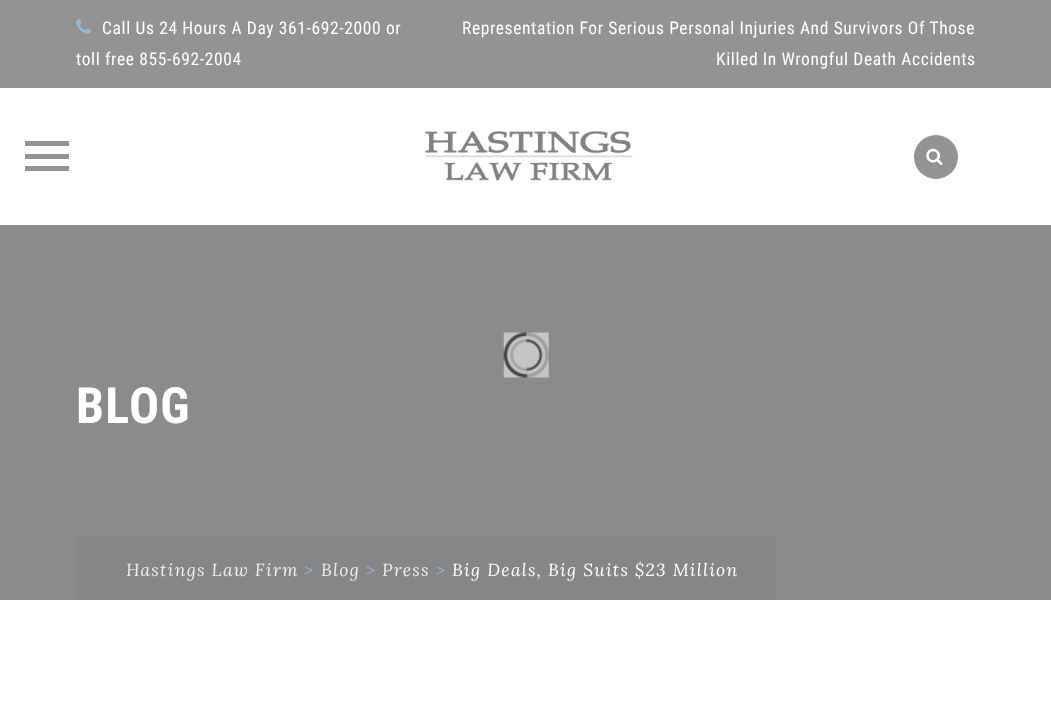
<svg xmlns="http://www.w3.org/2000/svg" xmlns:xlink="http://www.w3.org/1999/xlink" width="1051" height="710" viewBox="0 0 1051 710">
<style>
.cls-1{font:17.5px Roboto Condensed;letter-spacing:0.62px;fill:#ffffff}
.cls-2{font:bold 50px Roboto Condensed;letter-spacing:1.25px;fill:#ffffff}
.cls-3{font:italic 17.5px Lora;letter-spacing:1.25px;fill:#eeeeee}
.cls-4{font:italic 17.5px Lora;letter-spacing:1.25px;fill:#91badf}
.cls-5{font:italic 17.5px Lora;letter-spacing:1.25px;fill:#ffffff}
</style>
<rect width="100%" height="100%" fill="#ffffff"/>
<rect fill="#939393" x="0" y="0" width="1051" height="88"/>
<image xlink:href="image0.png" x="76" y="19" width="15" height="15"/>
<rect fill="#939393" x="25" y="154" width="44" height="5"/>
<rect fill="#939393" x="25" y="141" width="44" height="5"/>
<rect fill="#939393" x="25" y="166" width="44" height="5"/>
<image xlink:href="image1.png" x="424" y="130" width="209" height="51"/>
<circle fill="#939393" cx="936" cy="157" r="22"/>
<image xlink:href="image2.png" x="926" y="148" width="17" height="17"/>
<rect fill="#8b8b8b" x="0" y="225" width="1051" height="375"/>
<rect fill="#868686" x="76" y="536" width="700" height="64"/>
<image xlink:href="image3.png" x="503" y="332" width="46" height="46"/>
<text class="cls-1" x="102" y="34">Call Us 24 Hours A Day 361-692-2000 or</text>
<text class="cls-1" x="76" y="65">toll free 855-692-2004</text>
<text class="cls-1" x="462" y="34">Representation For Serious Personal Injuries And Survivors Of Those</text>
<text class="cls-1" x="716" y="65">Killed In Wrongful Death Accidents</text>
<text class="cls-2" x="76" y="423">BLOG</text>
<text class="cls-3" x="126" y="576">Hastings Law Firm</text>
<text class="cls-4" x="304" y="576">&gt;</text>
<text class="cls-3" x="321" y="576">Blog</text>
<text class="cls-4" x="366" y="576">&gt;</text>
<text class="cls-3" x="382" y="576">Press</text>
<text class="cls-4" x="436" y="576">&gt;</text>
<text class="cls-5" x="452" y="576">Big Deals, Big Suits $23 Million</text>
</svg>
